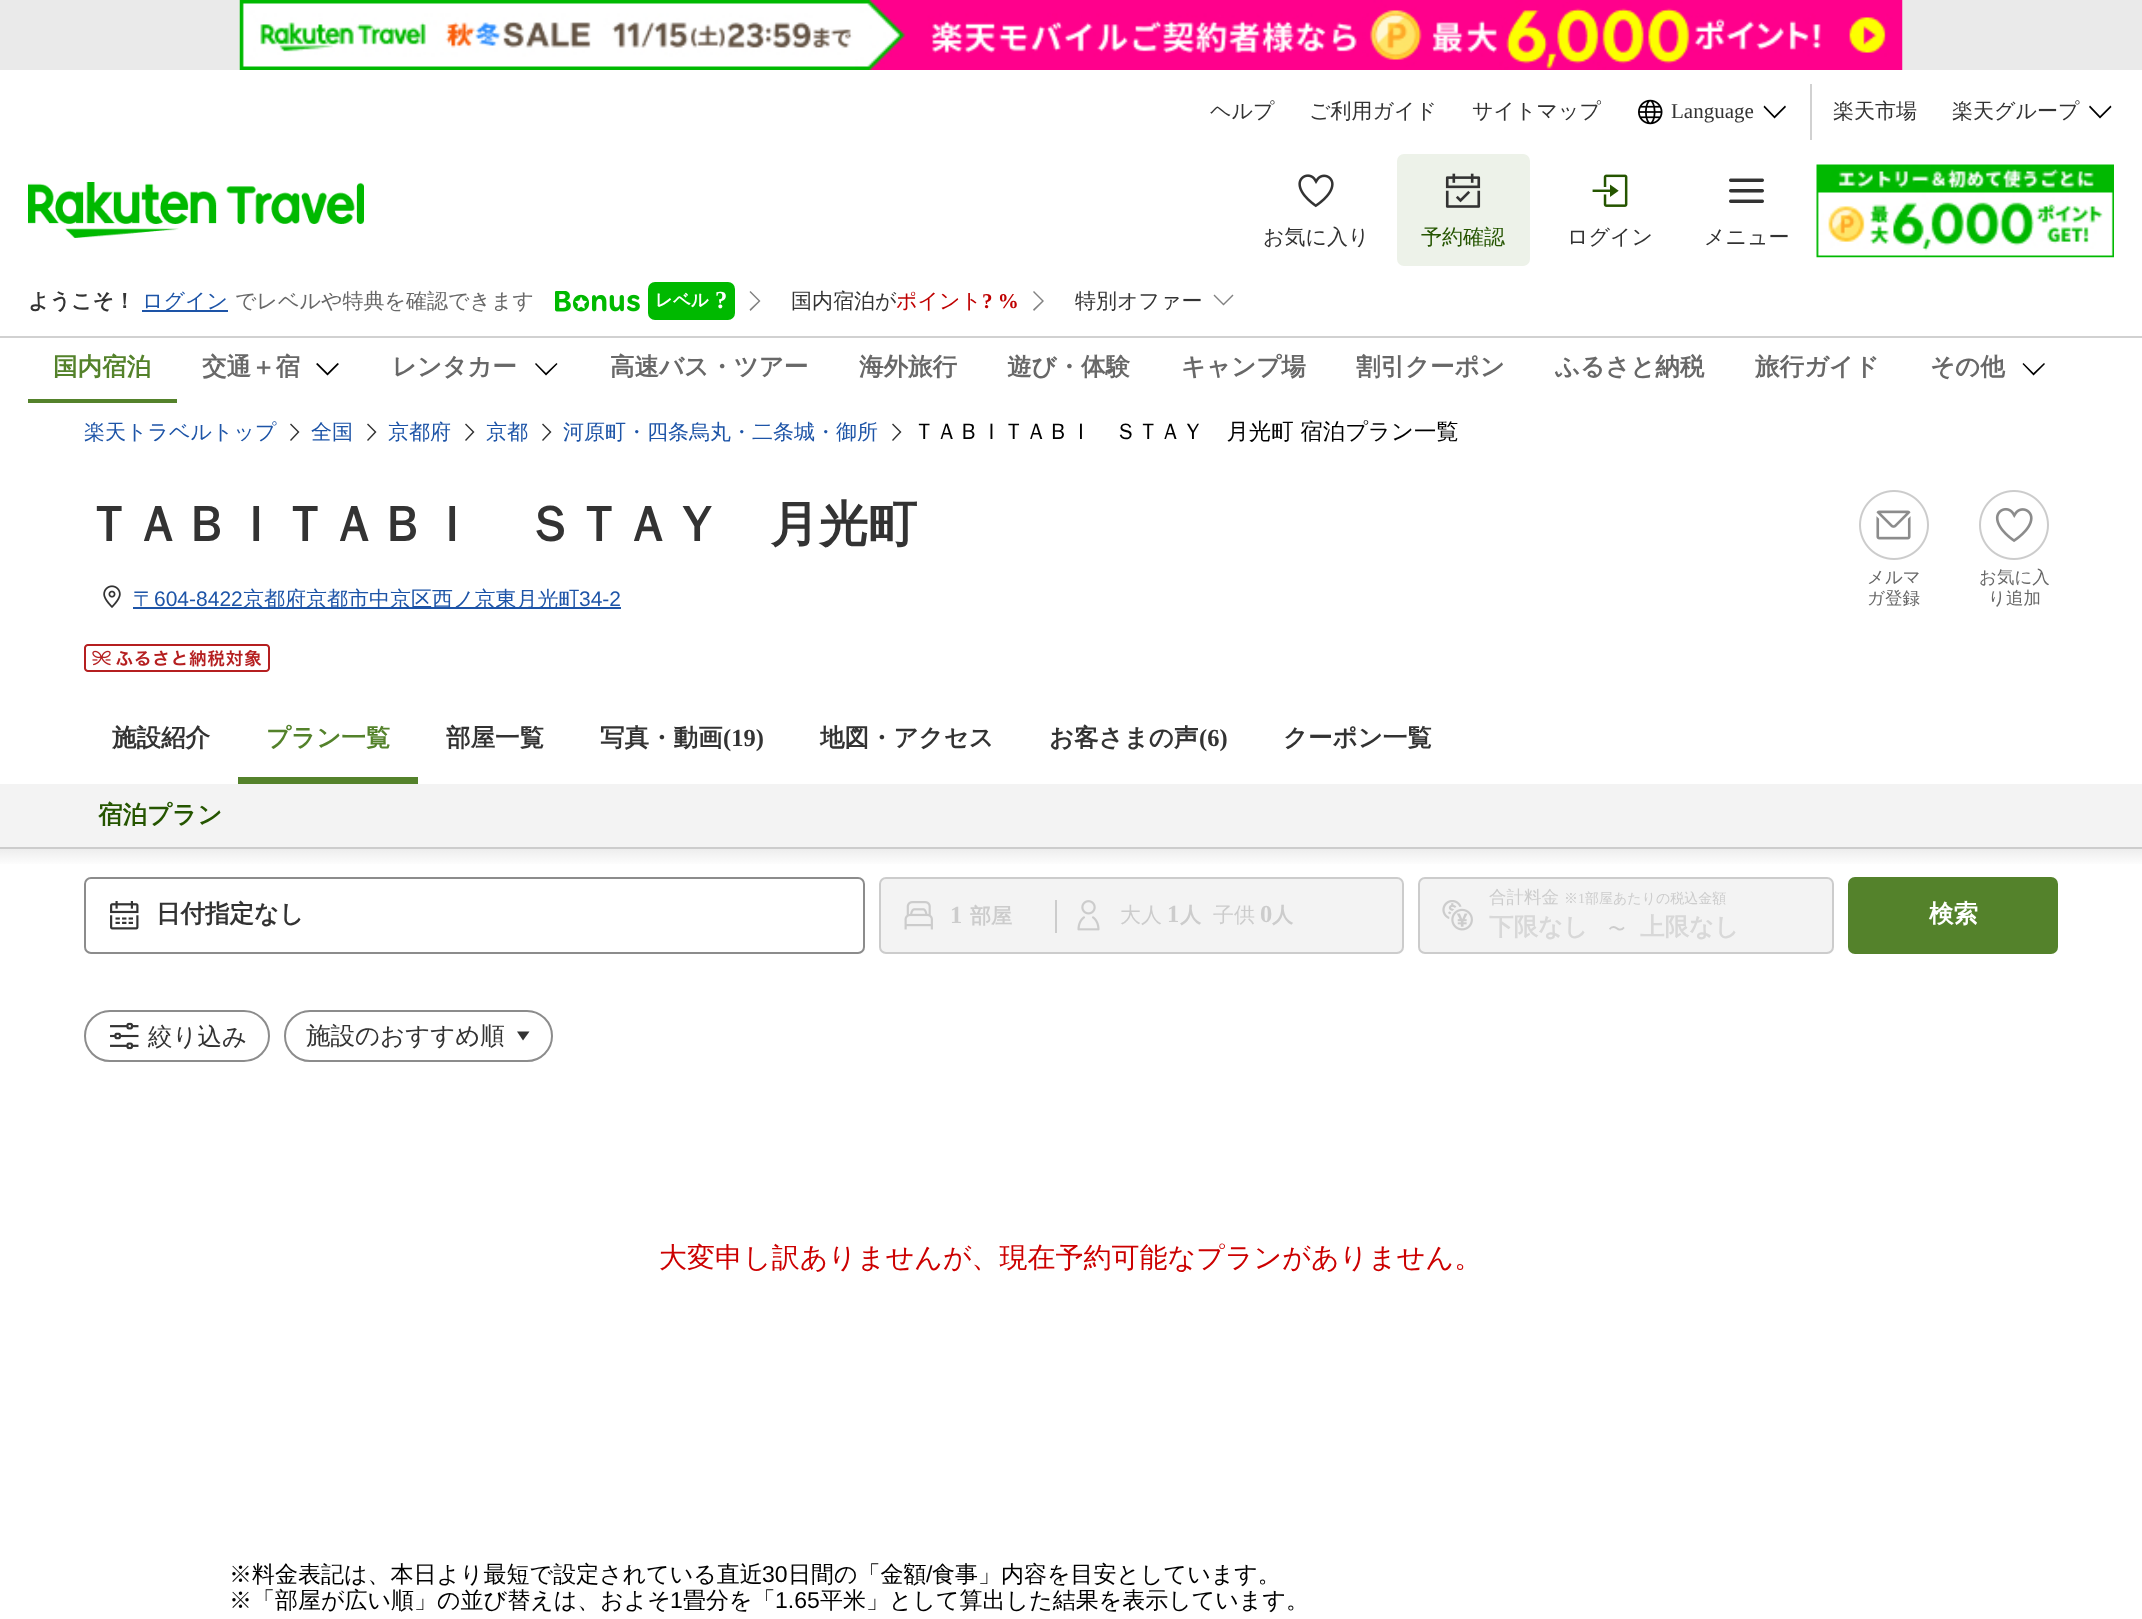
<svg xmlns="http://www.w3.org/2000/svg" xmlns:xlink="http://www.w3.org/1999/xlink" width="2142" height="1619" viewBox="0 0 2142 1619">
<style>
.cls-1{font:500 21px WenQuanYi Zen Hei;fill:#333333}
.cls-2{font:21px Liberation Serif;fill:#333333}
.cls-3{font:500 21px WenQuanYi Zen Hei;fill:#255500}
.cls-4{font:bold 21px WenQuanYi Zen Hei;fill:#333333}
.cls-5{font:500 21px WenQuanYi Zen Hei;fill:#1d54a7}
.cls-6{font:500 21px WenQuanYi Zen Hei;fill:#686868}
.cls-7{font:bold 17.5px WenQuanYi Zen Hei;fill:#ffffff}
.cls-8{font:bold 24.5px Liberation Serif;fill:#ffffff}
.cls-9{font:500 21px WenQuanYi Zen Hei;fill:#bf0000}
.cls-10{font:bold 21px Liberation Serif;fill:#bf0000}
.cls-11{font:bold 24.5px WenQuanYi Zen Hei;fill:#54822b}
.cls-12{font:bold 24.5px WenQuanYi Zen Hei;fill:#686868}
.cls-13{font:500 22.4px WenQuanYi Zen Hei;fill:#000000}
.cls-14{font:bold 49px WenQuanYi Zen Hei;fill:#333333}
.cls-15{font:21px Liberation Sans;fill:#1d54a7}
.cls-16{font:500 17.5px WenQuanYi Zen Hei;fill:#686868}
.cls-17{font:bold 24.5px WenQuanYi Zen Hei;fill:#333333}
.cls-18{font:bold 24.5px Liberation Serif;fill:#333333}
.cls-19{font:bold 24.5px WenQuanYi Zen Hei;fill:#255500}
.cls-20{font:bold 24.5px Liberation Serif;fill:#cccccc}
.cls-21{font:bold 21px WenQuanYi Zen Hei;fill:#cccccc}
.cls-22{font:500 21px WenQuanYi Zen Hei;fill:#cccccc}
.cls-23{font:500 17.5px WenQuanYi Zen Hei;fill:#cccccc}
.cls-24{font:500 14px WenQuanYi Zen Hei;fill:#cccccc}
.cls-25{font:14px Liberation Serif;fill:#cccccc}
.cls-26{font:bold 24.5px WenQuanYi Zen Hei;fill:#d8d8d8}
.cls-27{font:bold 24.5px WenQuanYi Zen Hei;fill:#ffffff}
.cls-28{font:500 24.5px WenQuanYi Zen Hei;fill:#333333}
.cls-29{font:500 28px WenQuanYi Zen Hei;fill:#cc0000}
.cls-30{font:500 23px WenQuanYi Zen Hei;fill:#000000}
.cls-31{font:23px Liberation Sans;fill:#000000}
</style>
<defs>
<linearGradient id="g1" gradientUnits="userSpaceOnUse" x1="1071" y1="866" x2="1071" y2="849"><stop offset="0" stop-color="#ffffff"/><stop offset="1" stop-color="#ededed"/></linearGradient>
</defs>
<rect width="100%" height="100%" fill="#ffffff"/>
<rect fill="#eaeaea" x="0" y="0" width="2142" height="70"/>
<image xlink:href="image0.png" x="239" y="0" width="1664" height="70"/>
<image xlink:href="image1.png" x="1638" y="99" width="25" height="26"/>
<path fill="#000000" fill-rule="evenodd" d="M1786 107L1785 105.5L1774.5 116L1764.5 105.5L1763.5 107L1774.5 118.5Z"/>
<rect fill="#d1d1d1" x="1810" y="84" width="2" height="56"/>
<path fill="#000000" fill-rule="evenodd" d="M2111.5 107L2110.5 105.5L2100 116L2090 105.5L2089 107L2100 118.5Z"/>
<image xlink:href="image2.png" x="28" y="182" width="336" height="56"/>
<image xlink:href="image3.png" x="1298" y="174" width="36" height="34"/>
<rect fill="#edf2e9" x="1397" y="154" width="133" height="112" rx="7"/>
<image xlink:href="image4.png" x="1445" y="173" width="36" height="35"/>
<image xlink:href="image5.png" x="1592" y="174" width="36" height="33"/>
<image xlink:href="image6.png" x="1729" y="178" width="35" height="25"/>
<image xlink:href="image7.png" x="1816" y="164" width="298" height="94"/>
<rect fill="#1d54a7" x="142" y="310" width="86" height="2"/>
<image xlink:href="image8.png" x="555" y="291" width="85" height="21"/>
<rect fill="#00b900" x="648" y="282" width="87" height="38" rx="7"/>
<path fill="#828282" fill-rule="evenodd" d="M750.5 291L749.5 292L758.5 301L749.5 309.5L750.5 311L760.5 301Z"/>
<path fill="#828282" fill-rule="evenodd" d="M1034 291L1033 292L1042 301L1033 309.5L1034 311L1044 301Z"/>
<path fill="#828282" fill-rule="evenodd" d="M1233.5 295.5L1232.5 294.5L1223.5 303.5L1214.5 294.5L1213.5 295.5L1223.5 305.5Z"/>
<rect fill="#d1d1d1" x="0" y="336" width="2142" height="2"/>
<rect fill="#54822b" x="28" y="399" width="149" height="4"/>
<path fill="#000000" fill-rule="evenodd" d="M339 364L337.5 363L327.5 373L317.5 363L316 364L327.5 375.5Z"/>
<path fill="#000000" fill-rule="evenodd" d="M557.5 364L556.5 363L546 373L536 363L535 364L546 375.5Z"/>
<path fill="#000000" fill-rule="evenodd" d="M2045 364L2044 363L2033.5 373L2023.5 363L2022.5 364L2033.5 375.5Z"/>
<path fill="#333333" fill-rule="evenodd" d="M291 423.5L290 424.5L297.5 432L290 440L291 441L299.5 432Z"/>
<path fill="#333333" fill-rule="evenodd" d="M368 423.5L367 424.5L374.5 432L367 440L368 441L376.5 432Z"/>
<path fill="#333333" fill-rule="evenodd" d="M466 423.5L465 424.5L472.5 432L465 440L466 441L474.5 432Z"/>
<path fill="#333333" fill-rule="evenodd" d="M543 423.5L542 424.5L549.5 432L542 440L543 441L551.5 432Z"/>
<path fill="#333333" fill-rule="evenodd" d="M893 423.5L892 424.5L899.5 432L892 440L893 441L901.5 432Z"/>
<image xlink:href="image9.png" x="103" y="585" width="18" height="23"/>
<rect fill="#1d54a7" x="133" y="607" width="488" height="2"/>
<image xlink:href="image10.png" x="84" y="644" width="186" height="28"/>
<image xlink:href="image11.png" x="1859" y="490" width="70" height="70"/>
<image xlink:href="image12.png" x="1979" y="490" width="70" height="70"/>
<rect fill="#54822b" x="238" y="777" width="180" height="7"/>
<rect fill="url(#g1)" x="0" y="849" width="2142" height="15"/>
<rect fill="#f3f3f3" x="0" y="784" width="2142" height="63"/>
<rect fill="#cccccc" x="0" y="847" width="2142" height="2"/>
<rect fill="none" stroke="#8c8c8c" stroke-width="2" x="85" y="878" width="779" height="75" rx="6"/>
<image xlink:href="image13.png" x="110" y="901" width="29" height="29"/>
<rect fill="#f3f3f3" stroke="#cccccc" stroke-width="2" x="880" y="878" width="523" height="75" rx="6"/>
<rect fill="#cccccc" x="1055" y="900" width="2" height="33"/>
<image xlink:href="image14.png" x="904" y="901" width="29" height="29"/>
<image xlink:href="image15.png" x="1077" y="900" width="23" height="31"/>
<rect fill="#f3f3f3" stroke="#cccccc" stroke-width="2" x="1419" y="878" width="414" height="75" rx="6"/>
<image xlink:href="image16.png" x="1442" y="900" width="31" height="31"/>
<rect fill="#54822b" x="1848" y="877" width="210" height="77" rx="7"/>
<rect fill="none" stroke="#8c8c8c" stroke-width="2" x="85" y="1011" width="184" height="50" rx="25"/>
<image xlink:href="image17.png" x="110" y="1022" width="29" height="28"/>
<rect fill="none" stroke="#8c8c8c" stroke-width="2" x="285" y="1011" width="267" height="50" rx="25"/>
<path fill="#333333" fill-rule="evenodd" d="M523 1040.5L517 1031.5H529.5Z"/>
<text class="cls-1" x="1210" y="118">ヘルプ</text>
<text class="cls-1" x="1309" y="118">ご利用ガイド</text>
<text class="cls-1" x="1472" y="118">サイトマップ</text>
<text class="cls-2" x="1671" y="118">Language</text>
<text class="cls-1" x="1833" y="118">楽天市場</text>
<text class="cls-1" x="1952" y="118">楽天グループ</text>
<text class="cls-1" x="1263" y="244">お気に入り</text>
<text class="cls-3" x="1421" y="244">予約確認</text>
<text class="cls-1" x="1567" y="244">ログイン</text>
<text class="cls-1" x="1704" y="244">メニュー</text>
<text class="cls-4" x="28" y="308">ようこそ！</text>
<text class="cls-5" x="142" y="308">ログイン</text>
<text class="cls-6" x="235" y="308">でレベルや特典を確認できます</text>
<text class="cls-7" x="655" y="306">レベル</text>
<text class="cls-8" x="715" y="308">?</text>
<text class="cls-1" x="791" y="308">国内宿泊が</text>
<text class="cls-9" x="896" y="308">ポイント</text>
<text class="cls-10" x="982" y="308">? %</text>
<text class="cls-1" x="1075" y="308">特別オファー</text>
<text class="cls-11" x="53" y="375">国内宿泊</text>
<text class="cls-12" x="202" y="375">交通＋宿</text>
<text class="cls-12" x="392" y="375">レンタカー</text>
<text class="cls-12" x="610" y="375">高速バス・ツアー</text>
<text class="cls-12" x="859" y="375">海外旅行</text>
<text class="cls-12" x="1007" y="375">遊び・体験</text>
<text class="cls-12" x="1181" y="375">キャンプ場</text>
<text class="cls-12" x="1356" y="375">割引クーポン</text>
<text class="cls-12" x="1555" y="375">ふるさと納税</text>
<text class="cls-12" x="1755" y="375">旅行ガイド</text>
<text class="cls-12" x="1930" y="375">その他</text>
<text class="cls-5" x="84" y="439">楽天トラベルトップ</text>
<text class="cls-5" x="311" y="439">全国</text>
<text class="cls-5" x="388" y="439">京都府</text>
<text class="cls-5" x="486" y="439">京都</text>
<text class="cls-5" x="563" y="439">河原町・四条烏丸・二条城・御所</text>
<text class="cls-13" x="913" y="439">ＴＡＢＩＴＡＢＩ　ＳＴＡＹ　月光町 宿泊プラン一覧</text>
<text class="cls-14" x="84" y="541">ＴＡＢＩＴＡＢＩ　ＳＴＡＹ　月光町</text>
<text class="cls-5" x="133" y="606">〒</text>
<text class="cls-15" x="154" y="606">604-8422</text>
<text class="cls-5" x="243" y="606">京都府京都市中京区西ノ京東月光町</text>
<text class="cls-15" x="579" y="606">34-2</text>
<text class="cls-16"><tspan x="1867" y="583">メルマ</tspan><tspan x="1867" y="604">ガ登録</tspan></text>
<text class="cls-16" x="1979" y="583">お気に入</text>
<text class="cls-16" x="1988" y="604">り追加</text>
<text class="cls-17" x="112" y="746">施設紹介</text>
<text class="cls-11" x="266" y="746">プラン一覧</text>
<text class="cls-17" x="446" y="746">部屋一覧</text>
<text class="cls-17" x="600" y="746">写真・動画</text>
<text class="cls-18" x="723" y="746">(19)</text>
<text class="cls-17" x="820" y="746">地図・アクセス</text>
<text class="cls-17" x="1049" y="746">お客さまの声</text>
<text class="cls-18" x="1199" y="746">(6)</text>
<text class="cls-17" x="1283" y="746">クーポン一覧</text>
<text class="cls-19" x="98" y="823">宿泊プラン</text>
<text class="cls-17" x="156" y="922">日付指定なし</text>
<text class="cls-20" x="950" y="923">1</text>
<text class="cls-21" x="970" y="923">部屋</text>
<text class="cls-22" x="1120" y="922">大人</text>
<text class="cls-20" x="1167" y="922">1</text>
<text class="cls-21" x="1180" y="922">人</text>
<text class="cls-22" x="1213" y="922">子供</text>
<text class="cls-20" x="1260" y="922">0</text>
<text class="cls-21" x="1272" y="922">人</text>
<text class="cls-23" x="1489" y="903">合計料金</text>
<text class="cls-24" x="1564" y="903">※</text>
<text class="cls-25" x="1578" y="903">1</text>
<text class="cls-24" x="1585" y="903">部屋あたりの税込金額</text>
<text class="cls-26" x="1489" y="935">下限なし</text>
<text class="cls-23" x="1608" y="935">〜</text>
<text class="cls-26" x="1640" y="935">上限なし</text>
<text class="cls-27" x="1929" y="922">検索</text>
<text class="cls-28" x="148" y="1045">絞り込み</text>
<text class="cls-28" x="306" y="1044">施設のおすすめ順</text>
<text class="cls-29" x="659" y="1267">大変申し訳ありませんが、現在予約可能なプランがありません。</text>
<text class="cls-30" x="229" y="1582">※料金表記は、本日より最短で設定されている直近</text>
<text class="cls-31" x="762" y="1582">30</text>
<text class="cls-30" x="788" y="1582">日間の「金額</text>
<text class="cls-31" x="926" y="1582">/</text>
<text class="cls-30" x="932" y="1582">食事」内容を目安としています。</text>
<text class="cls-30" x="229" y="1608">※「部屋が広い順」の並び替えは、およそ</text>
<text class="cls-31" x="670" y="1608">1</text>
<text class="cls-30" x="683" y="1608">畳分を「</text>
<text class="cls-31" x="775" y="1608">1.65</text>
<text class="cls-30" x="820" y="1608">平米」として算出した結果を表示しています。</text>
</svg>
